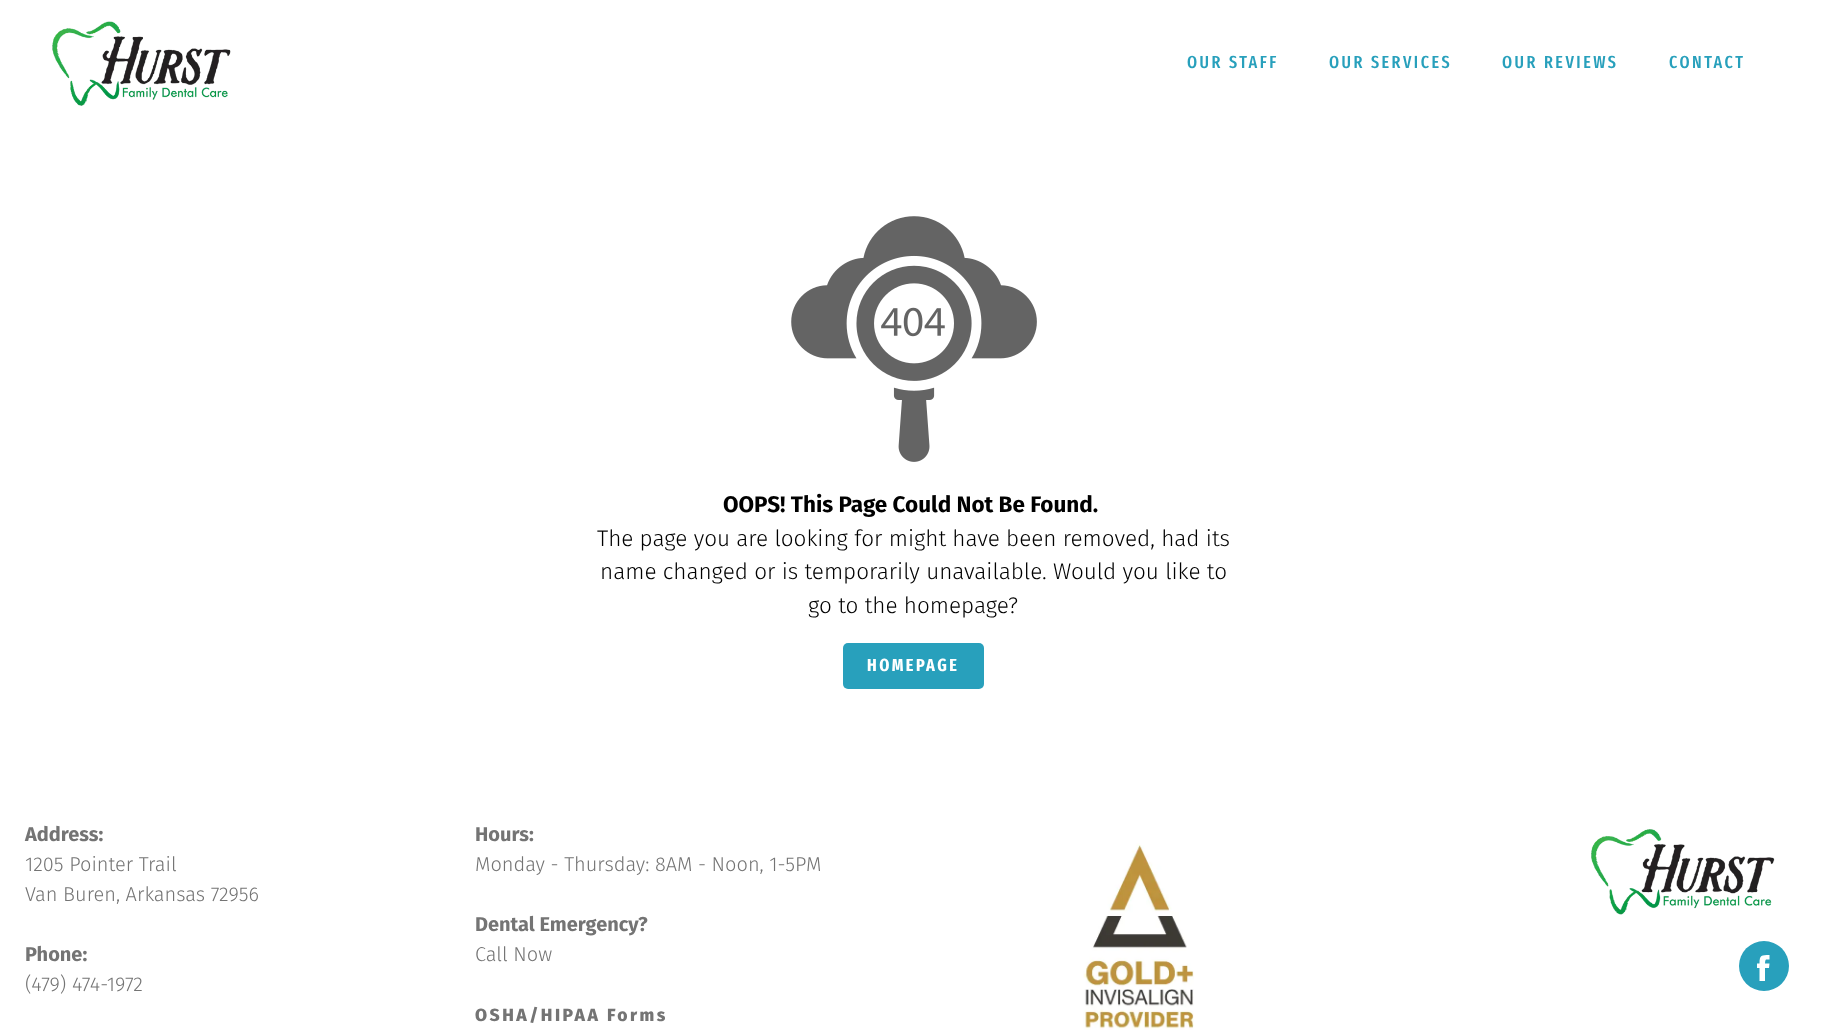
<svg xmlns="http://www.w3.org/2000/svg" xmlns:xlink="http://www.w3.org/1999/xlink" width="1826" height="1031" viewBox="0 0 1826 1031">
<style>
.cls-1{font:500 17.5px Fira Sans Extra Condensed;letter-spacing:2.5px;fill:#28a0bc}
.cls-2{font:bold 22.5px Fira Sans;fill:#000000}
.cls-3{font:300 22.5px Fira Sans;fill:#000000}
.cls-4{font:bold 17.5px Fira Sans Extra Condensed;letter-spacing:2.5px;fill:#ffffff}
.cls-5{font:bold 20px Fira Sans;fill:#747474}
.cls-6{font:300 20px Fira Sans;fill:#747474}
.cls-7{font:800 17.5px Fira Sans;letter-spacing:2.5px;fill:#747474}
</style>
<rect width="100%" height="100%" fill="#ffffff"/>
<image xlink:href="image0.png" x="52" y="21" width="179" height="85"/>
<image xlink:href="image1.png" x="791" y="216" width="246" height="246"/>
<rect fill="#28a0bc" x="843" y="643" width="141" height="46" rx="5"/>
<image xlink:href="image2.png" x="1083" y="843" width="111" height="187"/>
<image xlink:href="image3.png" x="1591" y="829" width="184" height="86"/>
<circle fill="#28a0bc" cx="1764" cy="966" r="25"/>
<path fill="#ffffff" fill-rule="evenodd" d="M1765 981H1759.5V968H1757V963.5H1759.5C1759.5 955 1761.5 955 1769.5 955V959.5C1765 959.5 1765.5 959 1765 963.5H1769.5L1769 968H1765Z"/>
<text class="cls-1" x="1187" y="68">OUR STAFF</text>
<text class="cls-1" x="1329" y="68">OUR SERVICES</text>
<text class="cls-1" x="1502" y="68">OUR REVIEWS</text>
<text class="cls-1" x="1669" y="68">CONTACT</text>
<text class="cls-2" x="723" y="512">OOPS! This Page Could Not Be Found.</text>
<text class="cls-3" x="597" y="546">The page you are looking for might have been removed, had its</text>
<text class="cls-3" x="600" y="579">name changed or is temporarily unavailable. Would you like to</text>
<text class="cls-3" x="808" y="613">go to the homepage?</text>
<text class="cls-4" x="867" y="671">HOMEPAGE</text>
<text class="cls-5" x="25" y="841">Address:</text>
<text class="cls-6"><tspan x="25" y="871">1205 Pointer Trail</tspan><tspan x="25" y="901">Van Buren, Arkansas 72956</tspan></text>
<text class="cls-5" x="25" y="961">Phone:</text>
<text class="cls-6" x="25" y="991">(479) 474-1972</text>
<text class="cls-5" x="475" y="841">Hours:</text>
<text class="cls-6" x="475" y="871">Monday - Thursday: 8AM - Noon, 1-5PM</text>
<text class="cls-5" x="475" y="931">Dental Emergency?</text>
<text class="cls-6" x="475" y="961">Call Now</text>
<text class="cls-7" x="475" y="1021">OSHA/HIPAA Forms</text>
</svg>
